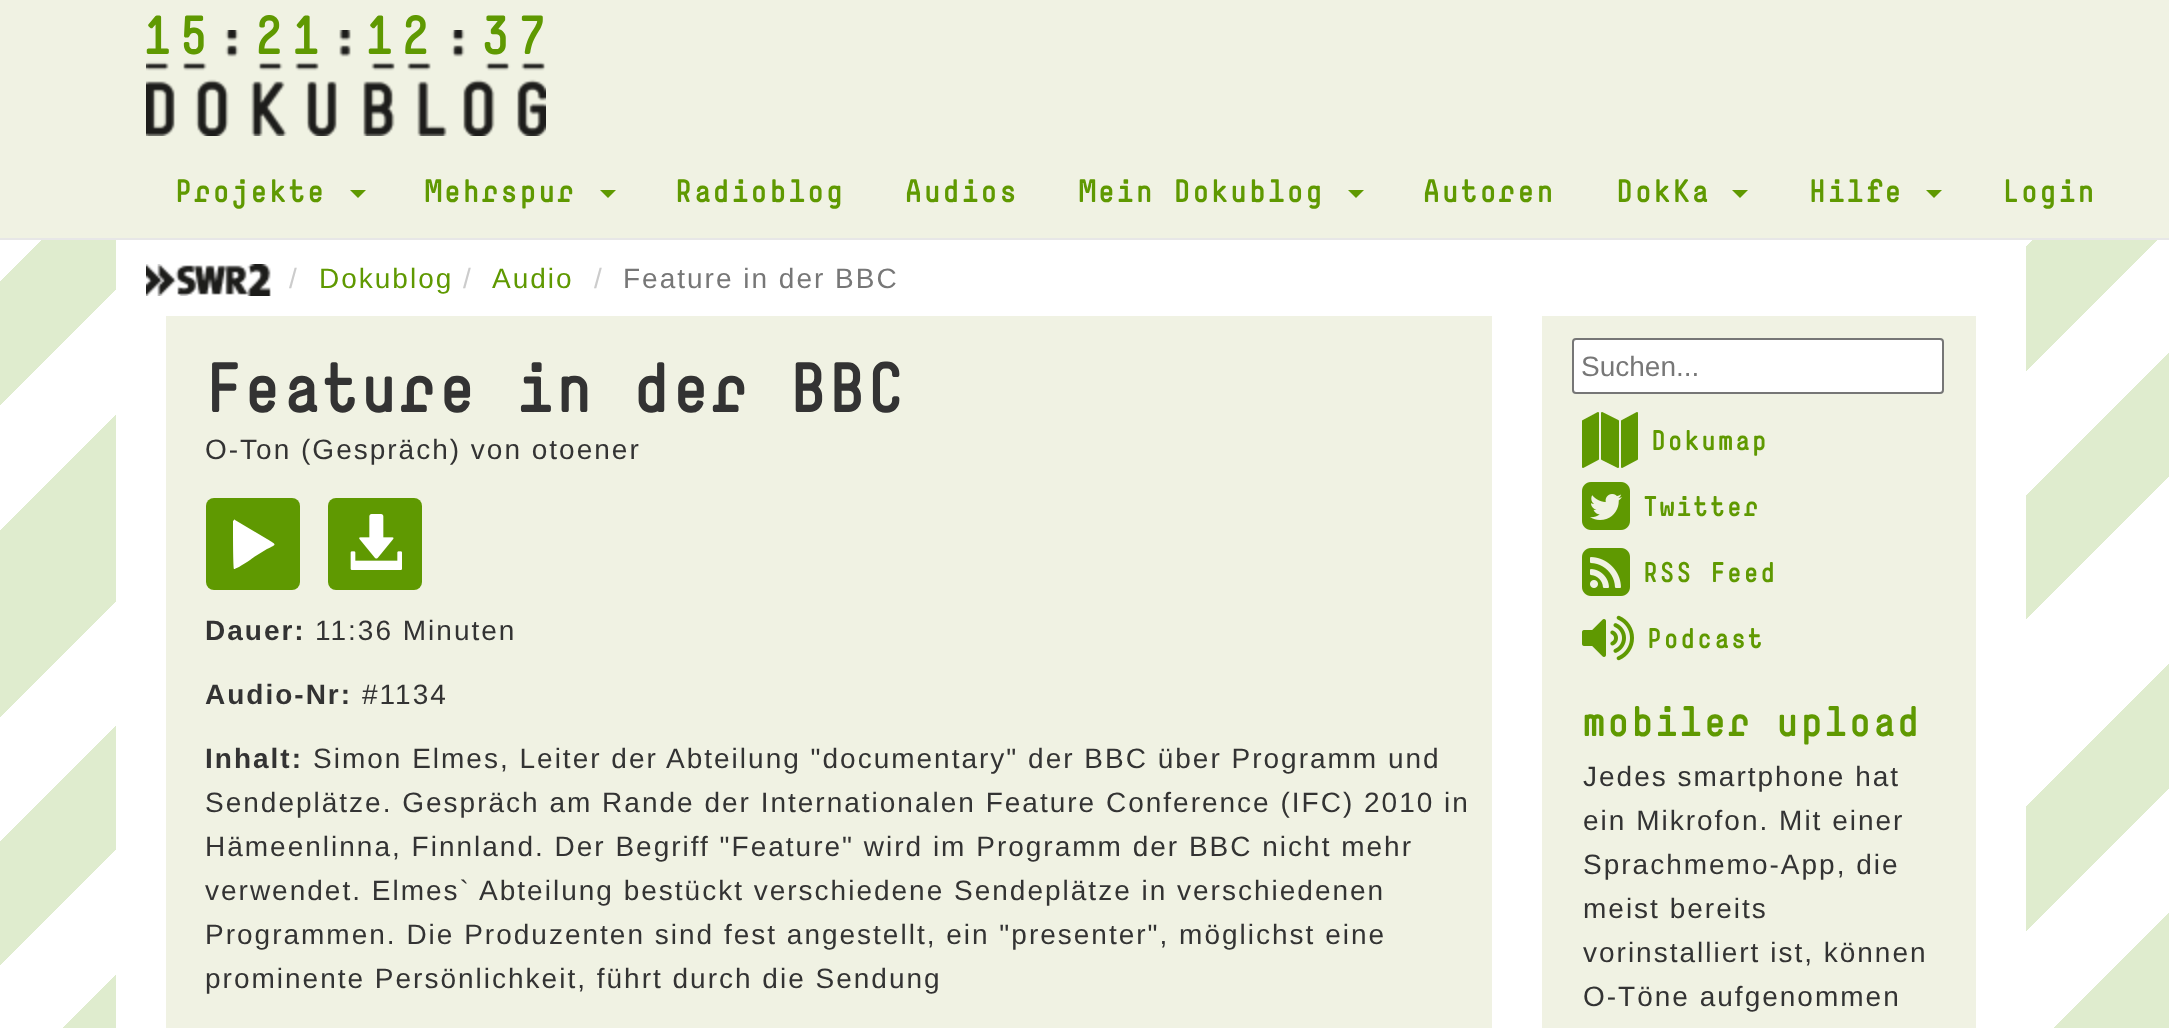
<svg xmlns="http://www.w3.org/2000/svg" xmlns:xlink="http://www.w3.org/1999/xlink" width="2169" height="1028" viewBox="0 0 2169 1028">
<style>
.cls-1{font:54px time;letter-spacing:-3px;fill:#5f9901}
.cls-2{font:bold 32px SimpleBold;letter-spacing:2px;fill:#5f9901}
.cls-3{font:28px Liberation Sans;letter-spacing:2px;fill:#cccccc}
.cls-4{font:28px Liberation Sans;letter-spacing:2px;fill:#5f9901}
.cls-5{font:28px Liberation Sans;letter-spacing:2px;fill:#777777}
.cls-6{font:bold 70px SimpleBold;letter-spacing:2px;fill:#333333}
.cls-7{font:28px Liberation Sans;letter-spacing:2px;fill:#333333}
.cls-8{font:bold 28px Liberation Sans;letter-spacing:2px;fill:#333333}
.cls-9{font:28px Liberation Sans;fill:#777777}
.cls-10{font:bold 28px SimpleBold;letter-spacing:2px;fill:#5f9901}
.cls-11{font:bold 42px SimpleBold;letter-spacing:2px;fill:#5f9901}
</style>
<defs>
<linearGradient id="g1" gradientUnits="userSpaceOnUse" x1="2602" y1="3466" x2="-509" y2="355"><stop offset="0" stop-color="#dfecce"/><stop offset="0.02" stop-color="#dfecce"/><stop offset="0.02" stop-color="#ffffff"/><stop offset="0.05" stop-color="#ffffff"/><stop offset="0.05" stop-color="#dfecce"/><stop offset="0.07" stop-color="#dfecce"/><stop offset="0.07" stop-color="#ffffff"/><stop offset="0.09" stop-color="#ffffff"/><stop offset="0.09" stop-color="#dfecce"/><stop offset="0.11" stop-color="#dfecce"/><stop offset="0.11" stop-color="#ffffff"/><stop offset="0.14" stop-color="#ffffff"/><stop offset="0.14" stop-color="#dfecce"/><stop offset="0.16" stop-color="#dfecce"/><stop offset="0.16" stop-color="#ffffff"/><stop offset="0.18" stop-color="#ffffff"/><stop offset="0.18" stop-color="#dfecce"/><stop offset="0.2" stop-color="#dfecce"/><stop offset="0.2" stop-color="#ffffff"/><stop offset="0.23" stop-color="#ffffff"/><stop offset="0.23" stop-color="#dfecce"/><stop offset="0.25" stop-color="#dfecce"/><stop offset="0.25" stop-color="#ffffff"/><stop offset="0.27" stop-color="#ffffff"/><stop offset="0.27" stop-color="#dfecce"/><stop offset="0.3" stop-color="#dfecce"/><stop offset="0.3" stop-color="#ffffff"/><stop offset="0.32" stop-color="#ffffff"/><stop offset="0.32" stop-color="#dfecce"/><stop offset="0.34" stop-color="#dfecce"/><stop offset="0.34" stop-color="#ffffff"/><stop offset="0.36" stop-color="#ffffff"/><stop offset="0.36" stop-color="#dfecce"/><stop offset="0.39" stop-color="#dfecce"/><stop offset="0.39" stop-color="#ffffff"/><stop offset="0.41" stop-color="#ffffff"/><stop offset="0.41" stop-color="#dfecce"/><stop offset="0.43" stop-color="#dfecce"/><stop offset="0.43" stop-color="#ffffff"/><stop offset="0.45" stop-color="#ffffff"/><stop offset="0.45" stop-color="#dfecce"/><stop offset="0.48" stop-color="#dfecce"/><stop offset="0.48" stop-color="#ffffff"/><stop offset="0.5" stop-color="#ffffff"/><stop offset="0.5" stop-color="#dfecce"/><stop offset="0.52" stop-color="#dfecce"/><stop offset="0.52" stop-color="#ffffff"/><stop offset="0.55" stop-color="#ffffff"/><stop offset="0.55" stop-color="#dfecce"/><stop offset="0.57" stop-color="#dfecce"/><stop offset="0.57" stop-color="#ffffff"/><stop offset="0.59" stop-color="#ffffff"/><stop offset="0.59" stop-color="#dfecce"/><stop offset="0.61" stop-color="#dfecce"/><stop offset="0.61" stop-color="#ffffff"/><stop offset="0.64" stop-color="#ffffff"/><stop offset="0.64" stop-color="#dfecce"/><stop offset="0.66" stop-color="#dfecce"/><stop offset="0.66" stop-color="#ffffff"/><stop offset="0.68" stop-color="#ffffff"/><stop offset="0.68" stop-color="#dfecce"/><stop offset="0.7" stop-color="#dfecce"/><stop offset="0.7" stop-color="#ffffff"/><stop offset="0.73" stop-color="#ffffff"/><stop offset="0.73" stop-color="#dfecce"/><stop offset="0.75" stop-color="#dfecce"/><stop offset="0.75" stop-color="#ffffff"/><stop offset="0.77" stop-color="#ffffff"/><stop offset="0.77" stop-color="#dfecce"/><stop offset="0.8" stop-color="#dfecce"/><stop offset="0.8" stop-color="#ffffff"/><stop offset="0.82" stop-color="#ffffff"/><stop offset="0.82" stop-color="#dfecce"/><stop offset="0.84" stop-color="#dfecce"/><stop offset="0.84" stop-color="#ffffff"/><stop offset="0.86" stop-color="#ffffff"/><stop offset="0.86" stop-color="#dfecce"/><stop offset="0.89" stop-color="#dfecce"/><stop offset="0.89" stop-color="#ffffff"/><stop offset="0.91" stop-color="#ffffff"/><stop offset="0.91" stop-color="#dfecce"/><stop offset="0.93" stop-color="#dfecce"/><stop offset="0.93" stop-color="#ffffff"/><stop offset="0.95" stop-color="#ffffff"/><stop offset="0.95" stop-color="#dfecce"/><stop offset="0.98" stop-color="#dfecce"/><stop offset="0.98" stop-color="#ffffff"/><stop offset="1" stop-color="#ffffff"/></linearGradient>
</defs>
<rect width="100%" height="100%" fill="#ffffff"/>
<rect fill="url(#g1)" x="0" y="240" width="2169" height="788"/>
<rect fill="#f0f2e3" x="0" y="0" width="2169" height="238"/>
<rect fill="#e7e7e7" x="0" y="238" width="2169" height="2"/>
<image xlink:href="image0.png" x="146" y="30" width="400" height="106"/>
<path fill="#5f9901" d="M350 190H366L358 198Z"/>
<path fill="#5f9901" d="M600 190H616L608 198Z"/>
<path fill="#5f9901" d="M1348 190H1364L1356 198Z"/>
<path fill="#5f9901" d="M1732 190H1748L1740 198Z"/>
<path fill="#5f9901" d="M1926 190H1942L1934 198Z"/>
<rect fill="#ffffff" x="116" y="240" width="1910" height="76"/>
<image xlink:href="image1.png" x="146" y="264" width="125" height="32"/>
<rect fill="#f0f2e3" x="166" y="316" width="1326" height="712"/>
<rect fill="#ffffff" x="116" y="365" width="50" height="663"/>
<rect fill="#5f9901" x="206" y="498" width="94" height="92" rx="8"/>
<path fill="#ffffff" d="M235 520L267 539C277 545 277 544 267 549L254 557C252 559 235 570 234 569C233 569 233 524 233 521C234 520 235 519 235 520Z"/>
<rect fill="#5f9901" x="328" y="498" width="94" height="92" rx="8"/>
<image xlink:href="image2.png" x="350" y="514" width="52" height="56"/>
<rect fill="#f0f2e3" x="1542" y="316" width="434" height="712"/>
<rect fill="#ffffff" x="1976" y="316" width="50" height="665"/>
<rect fill="#ffffff" x="1492" y="316" width="50" height="712"/>
<rect fill="#ffffff" stroke="#767676" stroke-width="2" x="1573" y="339" width="370" height="54" rx="3"/>
<image xlink:href="image3.png" x="1582" y="412" width="56" height="56"/>
<image xlink:href="image4.png" x="1582" y="482" width="48" height="48"/>
<image xlink:href="image5.png" x="1582" y="548" width="48" height="48"/>
<image xlink:href="image6.png" x="1582" y="615" width="52" height="46"/>
<text class="cls-1" x="143" y="54">15</text>
<text class="cls-1" x="255" y="54">21</text>
<text class="cls-1" x="365" y="54">12</text>
<text class="cls-1" x="481" y="54">37</text>
<text class="cls-2" x="175" y="202">Projekte</text>
<text class="cls-2" x="425" y="202">Mehrspur</text>
<text class="cls-2" x="675" y="202">Radioblog</text>
<text class="cls-2" x="905" y="202">Audios</text>
<text class="cls-2" x="1079" y="202">Mein Dokublog</text>
<text class="cls-2" x="1423" y="202">Autoren</text>
<text class="cls-2" x="1616" y="202">DokKa</text>
<text class="cls-2" x="1809" y="202">Hilfe</text>
<text class="cls-2" x="2002" y="202">Login</text>
<text class="cls-3" x="289" y="288">/</text>
<text class="cls-4" x="319" y="288">Dokublog</text>
<text class="cls-3" x="463" y="288">/</text>
<text class="cls-4" x="492" y="288">Audio</text>
<text class="cls-3" x="594" y="288">/</text>
<text class="cls-5" x="623" y="288">Feature in der BBC</text>
<text class="cls-6" x="205" y="412">Feature in der BBC</text>
<text class="cls-7" x="205" y="459">O-Ton (Gespräch) von otoener</text>
<text class="cls-8" x="205" y="640">Dauer:</text>
<text class="cls-7" x="315" y="640">11:36 Minuten</text>
<text class="cls-8" x="205" y="704">Audio-Nr:</text>
<text class="cls-7" x="362" y="704">#1134</text>
<text class="cls-8" x="205" y="768">Inhalt:</text>
<text class="cls-7" x="313" y="768">Simon Elmes, Leiter der Abteilung "documentary" der BBC über Programm und</text>
<text class="cls-7"><tspan x="205" y="812">Sendeplätze. Gespräch am Rande der Internationalen Feature Conference (IFC) 2010 in</tspan><tspan x="205" y="856">Hämeenlinna, Finnland. Der Begriff "Feature" wird im Programm der BBC nicht mehr</tspan><tspan x="205" y="900">verwendet. Elmes` Abteilung bestückt verschiedene Sendeplätze in verschiedenen</tspan><tspan x="205" y="944">Programmen. Die Produzenten sind fest angestellt, ein "presenter", möglichst eine</tspan><tspan x="205" y="988">prominente Persönlichkeit, führt durch die Sendung</tspan></text>
<text class="cls-9" x="1581" y="376">Suchen...</text>
<text class="cls-10" x="1651" y="450">Dokumap</text>
<text class="cls-10" x="1643" y="516">Twitter</text>
<text class="cls-10" x="1643" y="582">RSS Feed</text>
<text class="cls-10" x="1647" y="648">Podcast</text>
<text class="cls-11" x="1583" y="736">mobiler upload</text>
<text class="cls-7"><tspan x="1583" y="786">Jedes smartphone hat</tspan><tspan x="1583" y="830">ein Mikrofon. Mit einer</tspan><tspan x="1583" y="874">Sprachmemo-App, die</tspan><tspan x="1583" y="918">meist bereits</tspan><tspan x="1583" y="962">vorinstalliert ist, können</tspan><tspan x="1583" y="1006">O-Töne aufgenommen</tspan></text>
</svg>
